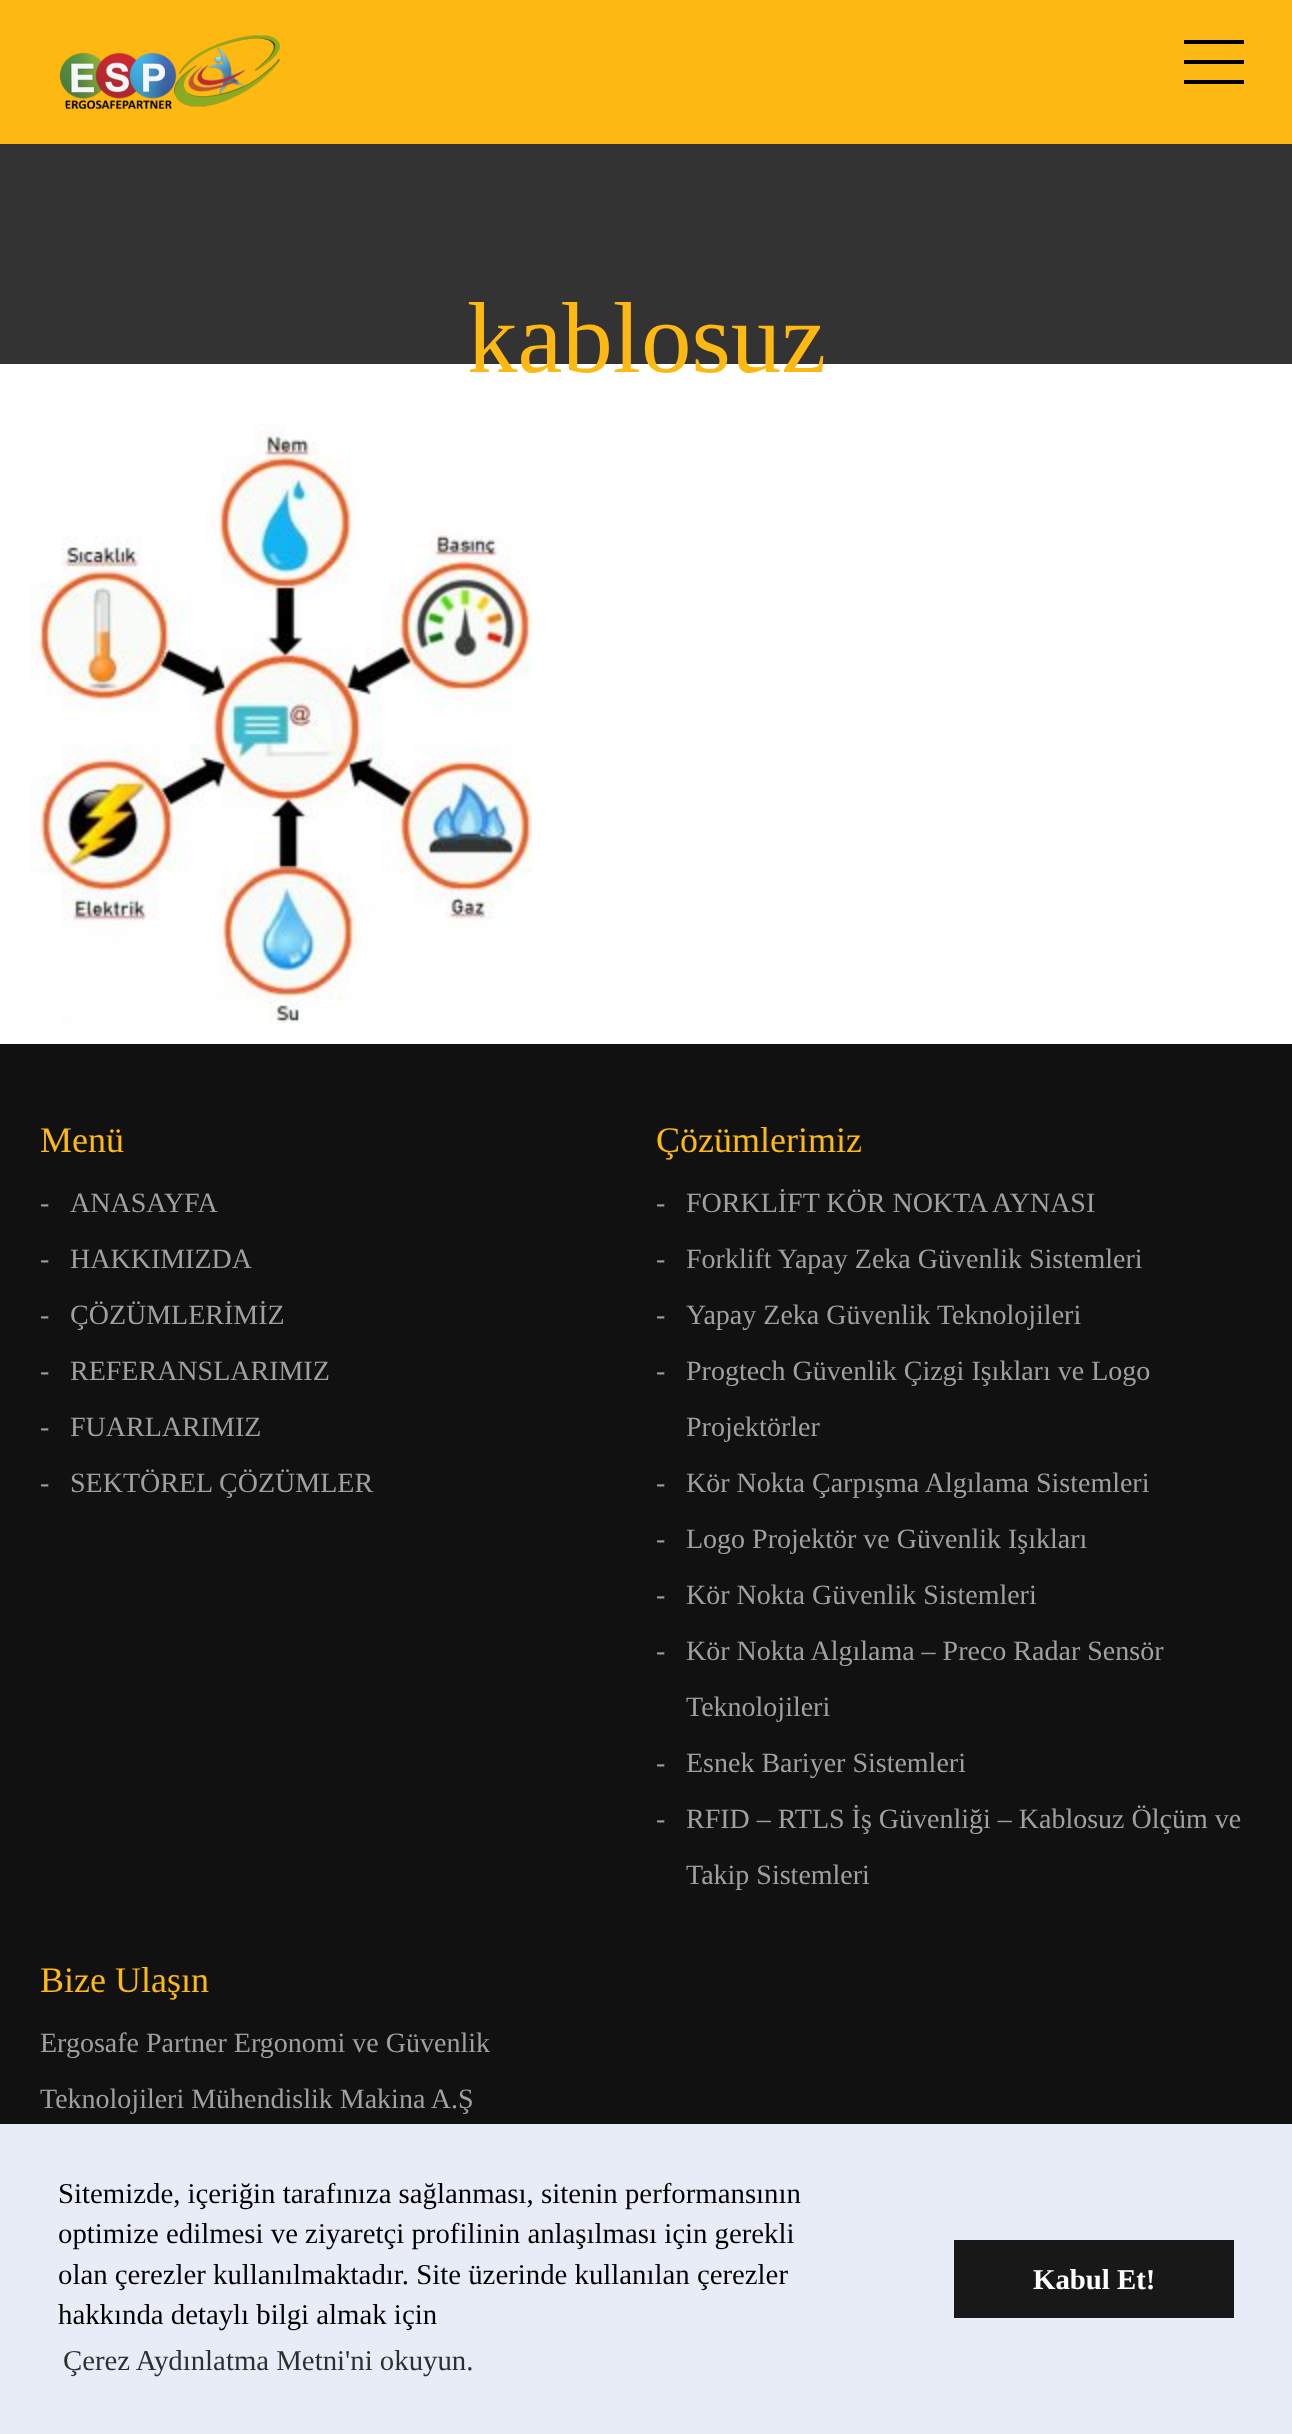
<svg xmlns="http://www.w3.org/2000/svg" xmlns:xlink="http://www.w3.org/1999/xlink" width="1292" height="2434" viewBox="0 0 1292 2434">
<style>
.cls-1{font:101px Liberation Serif;fill:#fdb812}
.cls-2{font:36px Liberation Serif;fill:#fdb812}
.cls-3{font:28px Liberation Serif;fill:#a0a0a0}
.cls-4{font:28.8px Liberation Serif;fill:#000000}
.cls-5{font:28.8px Liberation Serif;fill:#2e2f31}
.cls-6{font:bold 28.8px Liberation Serif;fill:#ffffff}
</style>
<rect width="100%" height="100%" fill="#ffffff"/>
<rect fill="#fdb812" x="0" y="0" width="1292" height="144"/>
<image xlink:href="image0.png" x="59" y="34" width="221" height="76"/>
<rect fill="#000000" x="1184" y="40" width="60" height="4"/>
<rect fill="#000000" x="1184" y="60" width="60" height="4"/>
<rect fill="#000000" x="1184" y="80" width="60" height="4"/>
<rect fill="#333333" x="0" y="144" width="1292" height="220"/>
<image xlink:href="image1.png" x="30" y="424" width="502" height="600"/>
<rect fill="#111111" x="0" y="1044" width="1292" height="1080"/>
<rect fill="#e8ecf7" x="0" y="2124" width="1292" height="310"/>
<rect fill="#181818" x="954" y="2240" width="280" height="78"/>
<text class="cls-1" x="467" y="372">kablosuz</text>
<text class="cls-2" x="40" y="1152">Menü</text>
<text class="cls-3" x="40" y="1212">-</text>
<text class="cls-3" x="70" y="1212">ANASAYFA</text>
<text class="cls-3" x="40" y="1268">-</text>
<text class="cls-3" x="70" y="1268">HAKKIMIZDA</text>
<text class="cls-3" x="40" y="1324">-</text>
<text class="cls-3" x="70" y="1324">ÇÖZÜMLERİMİZ</text>
<text class="cls-3" x="40" y="1380">-</text>
<text class="cls-3" x="70" y="1380">REFERANSLARIMIZ</text>
<text class="cls-3" x="40" y="1436">-</text>
<text class="cls-3" x="70" y="1436">FUARLARIMIZ</text>
<text class="cls-3" x="40" y="1492">-</text>
<text class="cls-3" x="70" y="1492">SEKTÖREL ÇÖZÜMLER</text>
<text class="cls-2" x="656" y="1152">Çözümlerimiz</text>
<text class="cls-3" x="656" y="1212">-</text>
<text class="cls-3" x="686" y="1212">FORKLİFT KÖR NOKTA AYNASI</text>
<text class="cls-3" x="656" y="1268">-</text>
<text class="cls-3" x="686" y="1268">Forklift Yapay Zeka Güvenlik Sistemleri</text>
<text class="cls-3" x="656" y="1324">-</text>
<text class="cls-3" x="686" y="1324">Yapay Zeka Güvenlik Teknolojileri</text>
<text class="cls-3" x="656" y="1380">-</text>
<text class="cls-3" x="686" y="1380">Progtech Güvenlik Çizgi Işıkları ve Logo</text>
<text class="cls-3" x="686" y="1436">Projektörler</text>
<text class="cls-3" x="656" y="1492">-</text>
<text class="cls-3" x="686" y="1492">Kör Nokta Çarpışma Algılama Sistemleri</text>
<text class="cls-3" x="656" y="1548">-</text>
<text class="cls-3" x="686" y="1548">Logo Projektör ve Güvenlik Işıkları</text>
<text class="cls-3" x="656" y="1604">-</text>
<text class="cls-3" x="686" y="1604">Kör Nokta Güvenlik Sistemleri</text>
<text class="cls-3" x="656" y="1660">-</text>
<text class="cls-3" x="686" y="1660">Kör Nokta Algılama – Preco Radar Sensör</text>
<text class="cls-3" x="686" y="1716">Teknolojileri</text>
<text class="cls-3" x="656" y="1772">-</text>
<text class="cls-3" x="686" y="1772">Esnek Bariyer Sistemleri</text>
<text class="cls-3" x="656" y="1828">-</text>
<text class="cls-3" x="686" y="1828">RFID – RTLS İş Güvenliği – Kablosuz Ölçüm ve</text>
<text class="cls-3" x="686" y="1884">Takip Sistemleri</text>
<text class="cls-2" x="40" y="1992">Bize Ulaşın</text>
<text class="cls-3" x="40" y="2052">Ergosafe Partner Ergonomi ve Güvenlik</text>
<text class="cls-3" x="40" y="2108">Teknolojileri Mühendislik Makina A.Ş</text>
<text class="cls-4"><tspan x="58" y="2203">Sitemizde, içeriğin tarafınıza sağlanması, sitenin performansının</tspan><tspan x="58" y="2243">optimize edilmesi ve ziyaretçi profilinin anlaşılması için gerekli</tspan><tspan x="58" y="2284">olan çerezler kullanılmaktadır. Site üzerinde kullanılan çerezler</tspan><tspan x="58" y="2324">hakkında detaylı bilgi almak için</tspan></text>
<text class="cls-5" x="63" y="2370">Çerez Aydınlatma Metni'ni okuyun.</text>
<text class="cls-6" x="1033" y="2289">Kabul Et!</text>
</svg>
